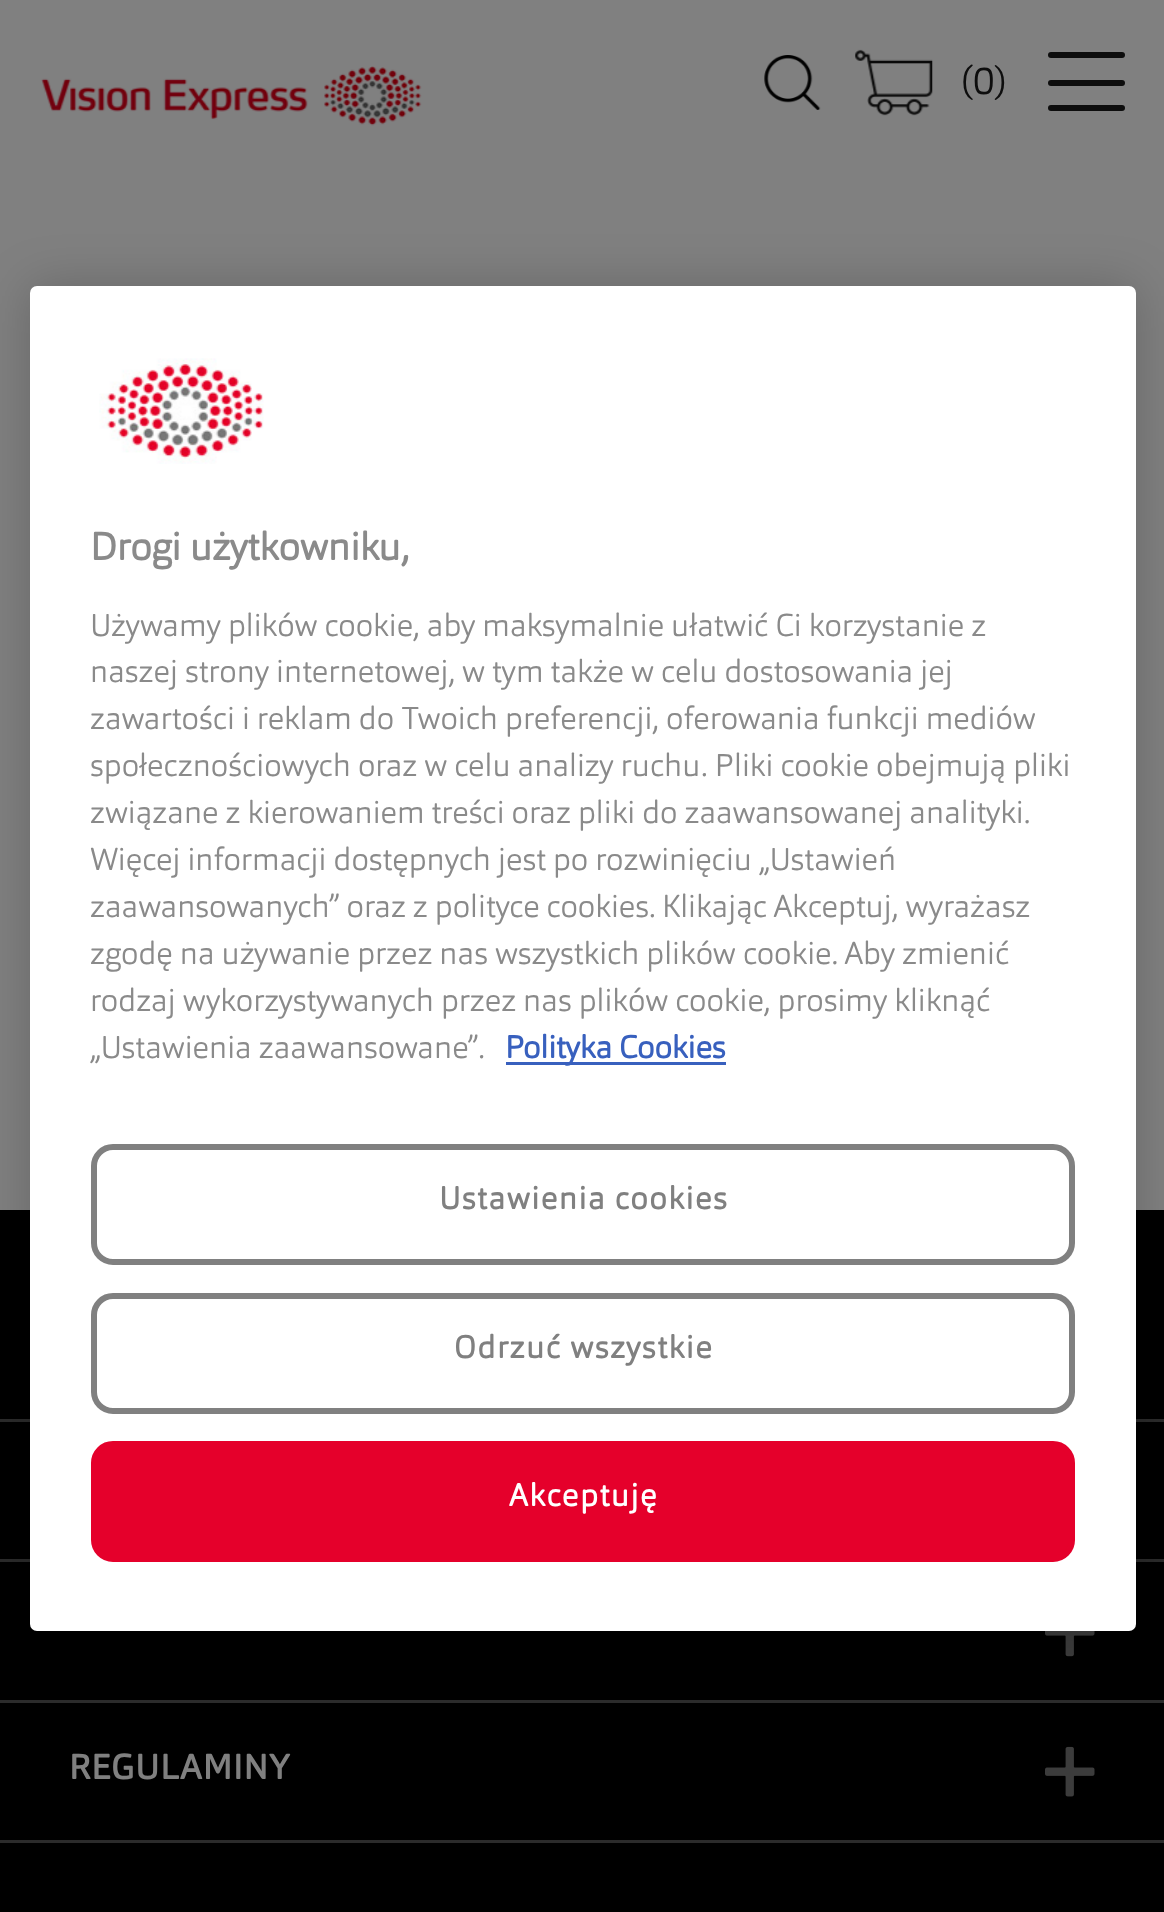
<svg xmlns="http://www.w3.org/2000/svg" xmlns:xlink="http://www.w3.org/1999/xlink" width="1164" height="1912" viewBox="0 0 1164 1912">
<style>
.cls-1{font:300 38.5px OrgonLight;fill:#0d0d0d}
.cls-2{font:500 35.75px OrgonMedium;fill:#808080}
.cls-3{font:bold 38.5px OrgonLight;fill:#8a8a8a}
.cls-4{font:300 31.3px OrgonLight;fill:#8a8a8a}
.cls-5{font:bold 31.3px OrgonLight;fill:#3860be}
.cls-6{font:bold 31.3px OrgonLight;letter-spacing:1.6px;fill:#808080}
.cls-7{font:bold 31.3px OrgonLight;letter-spacing:1.6px;fill:#ffffff}
</style>
<rect width="100%" height="100%" fill="#808080"/>
<image xlink:href="image0.png" x="41" y="66" width="381" height="60"/>
<image xlink:href="image1.png" x="764" y="55" width="57" height="55"/>
<image xlink:href="image2.png" x="855" y="49" width="78" height="67"/>
<rect fill="#0d0d0d" x="1048" y="52" width="77" height="6" rx="3"/>
<rect fill="#0d0d0d" x="1048" y="80" width="77" height="6" rx="3"/>
<rect fill="#0d0d0d" x="1048" y="105" width="77" height="6" rx="3"/>
<rect fill="#000000" x="0" y="1210" width="1164" height="702"/>
<rect fill="#2b2b2b" x="0" y="1419" width="1164" height="3"/>
<rect fill="#2b2b2b" x="0" y="1559" width="1164" height="3"/>
<rect fill="#2b2b2b" x="0" y="1700" width="1164" height="3"/>
<image xlink:href="image3.png" x="1045" y="1631" width="50" height="26"/>
<rect fill="#2b2b2b" x="0" y="1840" width="1164" height="3"/>
<image xlink:href="image4.png" x="1045" y="1746" width="50" height="51"/>
<rect fill="#000000" fill-opacity="0.2" filter="blur(25px)" x="30" y="286" width="1106" height="1345" rx="7"/>
<rect fill="#ffffff" x="30" y="286" width="1106" height="1345" rx="7"/>
<image xlink:href="image5.png" x="99" y="358" width="165" height="106"/>
<rect fill="#3860be" x="506" y="1062" width="220" height="3"/>
<rect fill="none" stroke="#808080" stroke-width="6" x="94" y="1147" width="978" height="115" rx="19"/>
<rect fill="none" stroke="#808080" stroke-width="6" x="94" y="1296" width="978" height="115" rx="19"/>
<rect fill="#e5002b" stroke="#e5002b" stroke-width="6" x="94" y="1444" width="978" height="115" rx="19"/>
<text class="cls-1" x="961" y="94">(0)</text>
<text class="cls-2" x="69" y="1779">REGULAMINY</text>
<text class="cls-3" x="90" y="560">Drogi użytkowniku,</text>
<text class="cls-4"><tspan x="90" y="636">Używamy plików cookie, aby maksymalnie ułatwić Ci korzystanie z</tspan><tspan x="90" y="682">naszej strony internetowej, w tym także w celu dostosowania jej</tspan><tspan x="90" y="729">zawartości i reklam do Twoich preferencji, oferowania funkcji mediów</tspan><tspan x="90" y="776">społecznościowych oraz w celu analizy ruchu. Pliki cookie obejmują pliki</tspan><tspan x="90" y="823">związane z kierowaniem treści oraz pliki do zaawansowanej analityki.</tspan><tspan x="90" y="870">Więcej informacji dostępnych jest po rozwinięciu „Ustawień</tspan><tspan x="90" y="917">zaawansowanych” oraz z polityce cookies.</tspan></text>
<text class="cls-4" x="662" y="917">Klikając Akceptuj, wyrażasz</text>
<text class="cls-4"><tspan x="90" y="964">zgodę na używanie przez nas wszystkich plików cookie. Aby zmienić</tspan><tspan x="90" y="1011">rodzaj wykorzystywanych przez nas plików cookie, prosimy kliknąć</tspan><tspan x="90" y="1058">„Ustawienia zaawansowane”.</tspan></text>
<text class="cls-5" x="505" y="1058">Polityka Cookies</text>
<text class="cls-6" x="439" y="1209">Ustawienia cookies</text>
<text class="cls-6" x="454" y="1358">Odrzuć wszystkie</text>
<text class="cls-7" x="509" y="1506">Akceptuję</text>
</svg>
